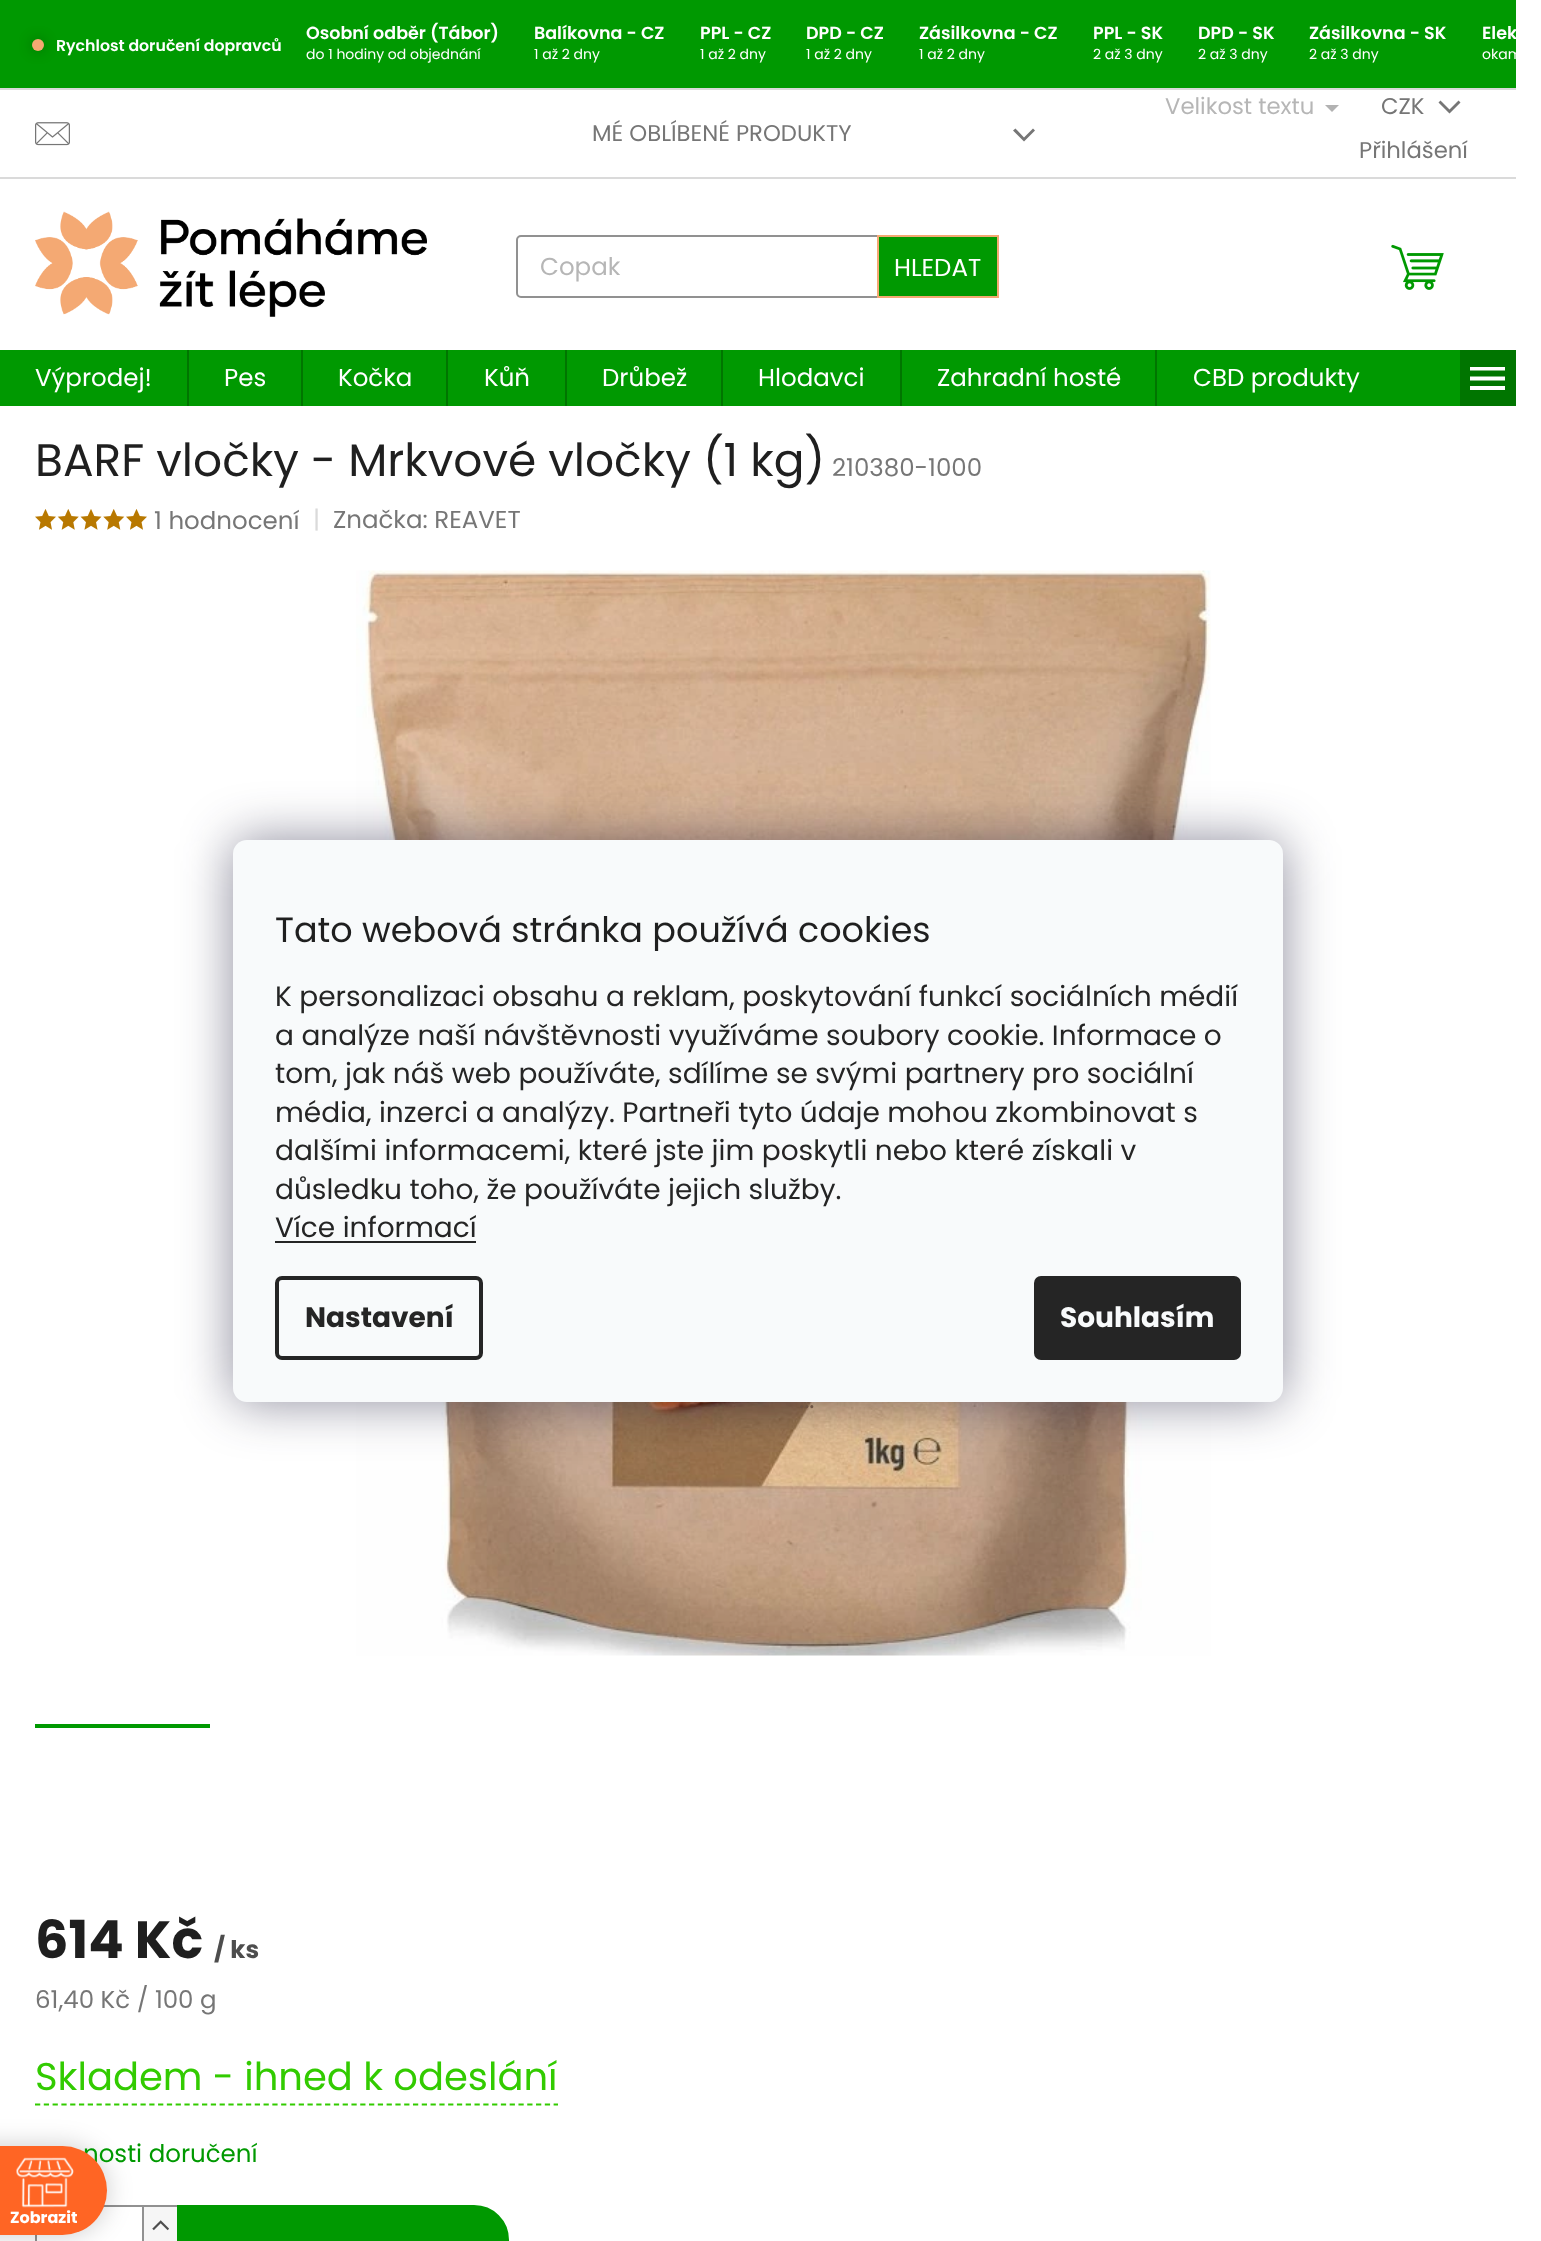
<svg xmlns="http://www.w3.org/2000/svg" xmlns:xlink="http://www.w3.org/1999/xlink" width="1541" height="2241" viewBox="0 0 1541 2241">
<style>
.cls-1{font:600 17.5px Poppins;fill:#ffffff}
.cls-2{font:600 15.75px Poppins;fill:#ffffff}
.cls-3{font:14px Poppins;fill:#ffffff}
.cls-4{font:22.75px Poppins;fill:#767676}
.cls-5{font:22.75px Poppins;fill:#b6b6b6}
.cls-6{font:24.5px Poppins;fill:#b6b6b6}
.cls-7{font:24.5px Poppins;fill:#ffffff}
.cls-8{font:45.5px Poppins;fill:#1f1f1f}
.cls-9{font:24.5px Poppins;fill:#767676}
.cls-10{font:24.5px Poppins;fill:#dadada}
.cls-11{font:24.5px Poppins;fill:#6d5444}
.cls-12{font:bold 52.5px Poppins;fill:#1f1f1f}
.cls-13{font:bold 24.5px Poppins;fill:#4d4d4d}
.cls-14{font:38.5px Poppins;fill:#32cb00}
.cls-15{font:24.5px Poppins;fill:#009901}
.cls-16{font:35px Poppins;fill:#1f1f1f}
.cls-17{font:28px Poppins;fill:#252525}
.cls-18{font:bold 28px Poppins;fill:#252525}
.cls-19{font:bold 28px Poppins;fill:#f8fafb}
.cls-20{font:bold 16px Poppins;fill:#ffffff}
</style>
<defs>
<clipPath id="clip1"><rect x="0" y="0" width="1516" height="88"/></clipPath>
</defs>
<rect width="100%" height="100%" fill="#ffffff"/>
<rect fill="#009901" x="0" y="0" width="1516" height="88"/>
<rect fill="#000000" fill-opacity="0.3" filter="blur(7px)" x="32" y="39" width="12" height="12" rx="6"/>
<circle fill="#f4a972" cx="38" cy="45" r="6"/>
<rect fill="#dadada" x="0" y="88" width="1516" height="2"/>
<rect fill="#dadada" x="0" y="177" width="1516" height="2"/>
<image xlink:href="image0.png" x="35" y="122" width="35" height="24"/>
<path fill="#767676" d="M1013 130.5L1015.5 128.5L1024 137.5L1033 128.5L1035 130.5L1024 141.5Z"/>
<path fill="#b2b2b2" d="M1325 105H1339L1332 112Z"/>
<path fill="#767676" d="M1438.5 102.5L1440.5 100.5L1449.5 109.5L1458.5 100.5L1460.5 102.5L1449.5 113.5Z"/>
<image xlink:href="image1.png" x="35" y="211" width="392" height="106"/>
<rect fill="none" stroke="#919191" stroke-width="2" x="517" y="236" width="481" height="61" rx="4"/>
<rect fill="#009901" stroke="#f4a972" stroke-width="2" x="878" y="236" width="120" height="61"/>
<image xlink:href="image2.png" x="1391" y="244" width="53" height="46"/>
<rect fill="#009901" x="0" y="350" width="1460" height="56"/>
<rect fill="#007500" x="187" y="350" width="2" height="56"/>
<rect fill="#007500" x="301" y="350" width="2" height="56"/>
<rect fill="#007500" x="446" y="350" width="2" height="56"/>
<rect fill="#007500" x="565" y="350" width="2" height="56"/>
<rect fill="#007500" x="721" y="350" width="2" height="56"/>
<rect fill="#007500" x="900" y="350" width="2" height="56"/>
<rect fill="#007500" x="1155" y="350" width="2" height="56"/>
<rect fill="#007500" x="1460" y="350" width="56" height="56"/>
<path fill="#ffffff" d="M1470 390H1505V386H1470ZM1470 380.5H1505V376.5H1470ZM1470 367V370.5H1505V367Z"/>
<image xlink:href="image3.png" x="35" y="509" width="21" height="21"/>
<image xlink:href="image4.png" x="57" y="509" width="22" height="21"/>
<image xlink:href="image5.png" x="80" y="509" width="22" height="21"/>
<image xlink:href="image6.png" x="103" y="509" width="22" height="21"/>
<image xlink:href="image3.png" x="126" y="509" width="21" height="21"/>
<image xlink:href="image7.png" x="356" y="570" width="855" height="1086"/>
<rect fill="#009901" x="35" y="1724" width="175" height="4"/>
<path fill="none" stroke="#32cb00" stroke-width="1.8" stroke-dasharray="5.25 3.54" d="M35 2104.5H558"/>
<path fill="#919191" fill-rule="evenodd" d="M40 2205H177V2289H40C37 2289 35 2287 35 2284V2210C35 2207 37 2205 40 2205ZM40 2207H177V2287H40C38 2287 37 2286 37 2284V2210C37 2208 38 2207 40 2207Z"/>
<rect fill="#f6f6f6" x="144" y="2207" width="33" height="34"/>
<rect fill="#919191" x="142" y="2207" width="2" height="34"/>
<image xlink:href="image8.png" x="152" y="2220" width="17" height="11"/>
<path fill="#009901" stroke="#009901" stroke-width="2" d="M178 2206H474C493 2206 508 2221 508 2240V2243C508 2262 493 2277 474 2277H178Z"/>
<rect fill="#1b1939" fill-opacity="0.5" filter="blur(26px)" x="233" y="840" width="1050" height="562" rx="14"/>
<rect fill="#f8fafb" x="233" y="840" width="1050" height="562" rx="14"/>
<rect fill="#252525" x="275" y="1241" width="201" height="2"/>
<rect fill="none" stroke="#252525" stroke-width="4" x="277" y="1278" width="204" height="80" rx="5"/>
<rect fill="#252525" x="1034" y="1276" width="207" height="84" rx="7"/>
<rect fill="#000000" fill-opacity="0.2" filter="blur(13px)" x="-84" y="2146" width="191" height="89" rx="44.5"/>
<text class="cls-1" x="306" y="39">Osobní odběr (Tábor)</text>
<text class="cls-1" x="534" y="39">Balíkovna - CZ</text>
<text class="cls-1" x="700" y="39">PPL - CZ</text>
<text class="cls-1" x="806" y="39">DPD - CZ</text>
<text class="cls-1" x="919" y="39">Zásilkovna - CZ</text>
<text class="cls-1" x="1093" y="39">PPL - SK</text>
<text class="cls-1" x="1198" y="39">DPD - SK</text>
<text class="cls-1" x="1309" y="39">Zásilkovna - SK</text>
<text class="cls-1" x="1482" y="39">Elek</text>
<text class="cls-2" x="56" y="51">Rychlost doručení dopravců</text>
<text class="cls-3" x="306" y="59">do 1 hodiny od objednání</text>
<text class="cls-3" x="534" y="59">1 až 2 dny</text>
<text class="cls-3" x="700" y="59">1 až 2 dny</text>
<text class="cls-3" x="806" y="59">1 až 2 dny</text>
<text class="cls-3" x="919" y="59">1 až 2 dny</text>
<text class="cls-3" x="1093" y="59">2 až 3 dny</text>
<text class="cls-3" x="1198" y="59">2 až 3 dny</text>
<text class="cls-3" x="1309" y="59">2 až 3 dny</text>
<g clip-path="url(#clip1)">
<text class="cls-3" x="1482" y="59">okam</text>
</g>
<text class="cls-4" x="592" y="141">MÉ OBLÍBENÉ PRODUKTY</text>
<text class="cls-5" x="1165" y="114">Velikost textu</text>
<text class="cls-4" x="1381" y="114">CZK</text>
<text class="cls-4" x="1359" y="158">Přihlášení</text>
<text class="cls-6" x="540" y="275">Copak</text>
<text class="cls-7" x="894" y="276">HLEDAT</text>
<text class="cls-7" x="35" y="386">Výprodej!</text>
<text class="cls-7" x="224" y="386">Pes</text>
<text class="cls-7" x="338" y="386">Kočka</text>
<text class="cls-7" x="484" y="386">Kůň</text>
<text class="cls-7" x="602" y="386">Drůbež</text>
<text class="cls-7" x="758" y="386">Hlodavci</text>
<text class="cls-7" x="937" y="386">Zahradní hosté</text>
<text class="cls-7" x="1193" y="386">CBD produkty</text>
<text class="cls-8" x="35" y="476">BARF vločky - Mrkvové vločky (1 kg)</text>
<text class="cls-9" x="832" y="476">210380-1000</text>
<text class="cls-9" x="154" y="529">1 hodnocení</text>
<text class="cls-10" x="313" y="528">|</text>
<text class="cls-9" x="333" y="528">Značka: REAVET</text>
<text class="cls-11" x="799" y="1408">...</text>
<text class="cls-12" x="35" y="1958">614 Kč</text>
<text class="cls-13" x="214" y="1958">/ ks</text>
<text class="cls-9" x="35" y="2008">61,40 Kč / 100 g</text>
<text class="cls-14" x="35" y="2090">Skladem - ihned k odeslání</text>
<text class="cls-15" x="83" y="2162">nosti doručení</text>
<text class="cls-16" x="275" y="942">Tato webová stránka používá cookies</text>
<text class="cls-17"><tspan x="275" y="1006">K personalizaci obsahu a reklam, poskytování funkcí sociálních médií</tspan><tspan x="275" y="1045">a analýze naší návštěvnosti využíváme soubory cookie. Informace o</tspan><tspan x="275" y="1083">tom, jak náš web používáte, sdílíme se svými partnery pro sociální</tspan><tspan x="275" y="1122">média, inzerci a analýzy. Partneři tyto údaje mohou zkombinovat s</tspan><tspan x="275" y="1160">dalšími informacemi, které jste jim poskytli nebo které získali v</tspan><tspan x="275" y="1199">důsledku toho, že používáte jejich služby.</tspan><tspan x="275" y="1237">Více informací</tspan></text>
<text class="cls-18" x="305" y="1327">Nastavení</text>
<text class="cls-19" x="1060" y="1327">Souhlasím</text>
<rect fill="#ff6524" x="-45" y="2146" width="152" height="89" rx="44.5"/>
<image xlink:href="image9.png" x="16" y="2157" width="58" height="51"/>
<text class="cls-20" x="10" y="2223">Zobrazit</text>
</svg>
